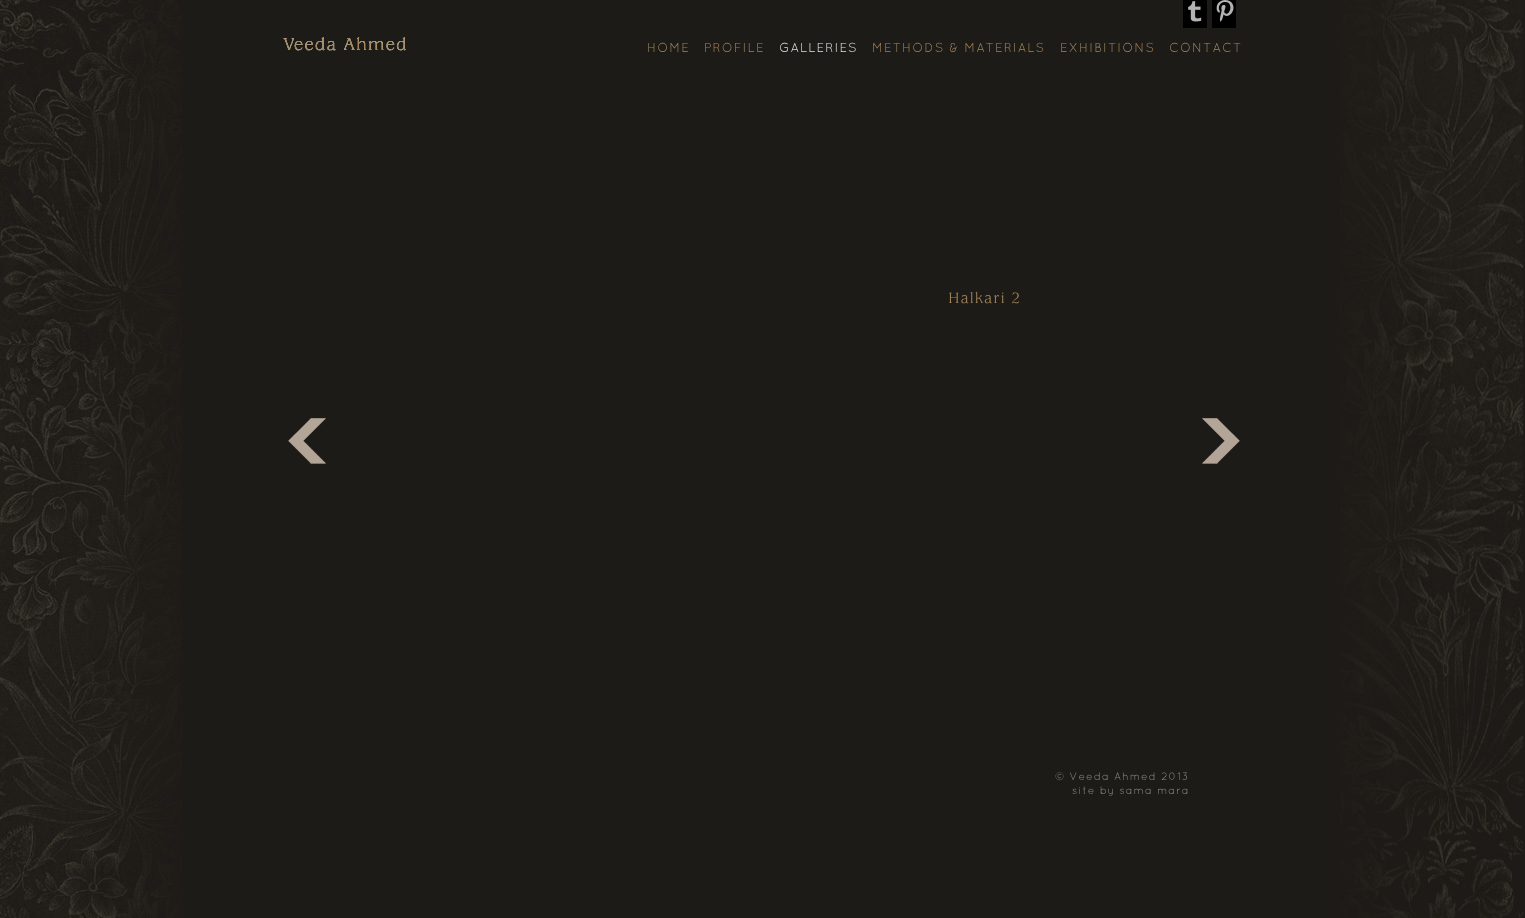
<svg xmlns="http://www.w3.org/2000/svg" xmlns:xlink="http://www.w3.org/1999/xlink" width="1525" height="918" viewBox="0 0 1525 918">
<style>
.cls-1{font:19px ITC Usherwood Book;letter-spacing:1px;fill:#e9e9e8}
.cls-2{font:19px ITC Usherwood Book;letter-spacing:1px;fill:#a2865a}
.cls-3{font:13px Quicksand;letter-spacing:1px;fill:#a2865a}
.cls-4{font:13px Quicksand;letter-spacing:1px;fill:#dee3e7}
.cls-5{font:16.5px ITC Usherwood Book;letter-spacing:1px;fill:#a2865a}
.cls-6{font:10.9px Quicksand;letter-spacing:1px;fill:#888888}
</style>
<rect width="100%" height="100%" fill="#1d1b17"/>
<image xlink:href="image0.png" x="0" y="0" width="182" height="918"/>
<image xlink:href="image1.png" x="1340" y="0" width="184" height="918"/>
<image xlink:href="image2.png" x="1183" y="0" width="24" height="28"/>
<image xlink:href="image3.png" x="1212" y="0" width="24" height="28"/>
<image xlink:href="image4.png" x="288" y="418" width="38" height="46"/>
<image xlink:href="image5.png" x="1202" y="418" width="38" height="46"/>
<text class="cls-1" x="283" y="50">Veeda Ahmed</text>
<text class="cls-2" x="283" y="50">Veeda Ahmed</text>
<text class="cls-3" x="647" y="52">HOME</text>
<text class="cls-3" x="704" y="52">PROFILE</text>
<text class="cls-4" x="779" y="52">GALLERIES</text>
<text class="cls-3" x="872" y="52">METHODS &amp; MATERIALS</text>
<text class="cls-3" x="1060" y="52">EXHIBITIONS</text>
<text class="cls-3" x="1169" y="52">CONTACT</text>
<text class="cls-5" x="948" y="303">Halkari 2</text>
<text class="cls-6" x="1055" y="780">© Veeda Ahmed 2013</text>
<text class="cls-6" x="1072" y="794">site by sama mara</text>
</svg>
